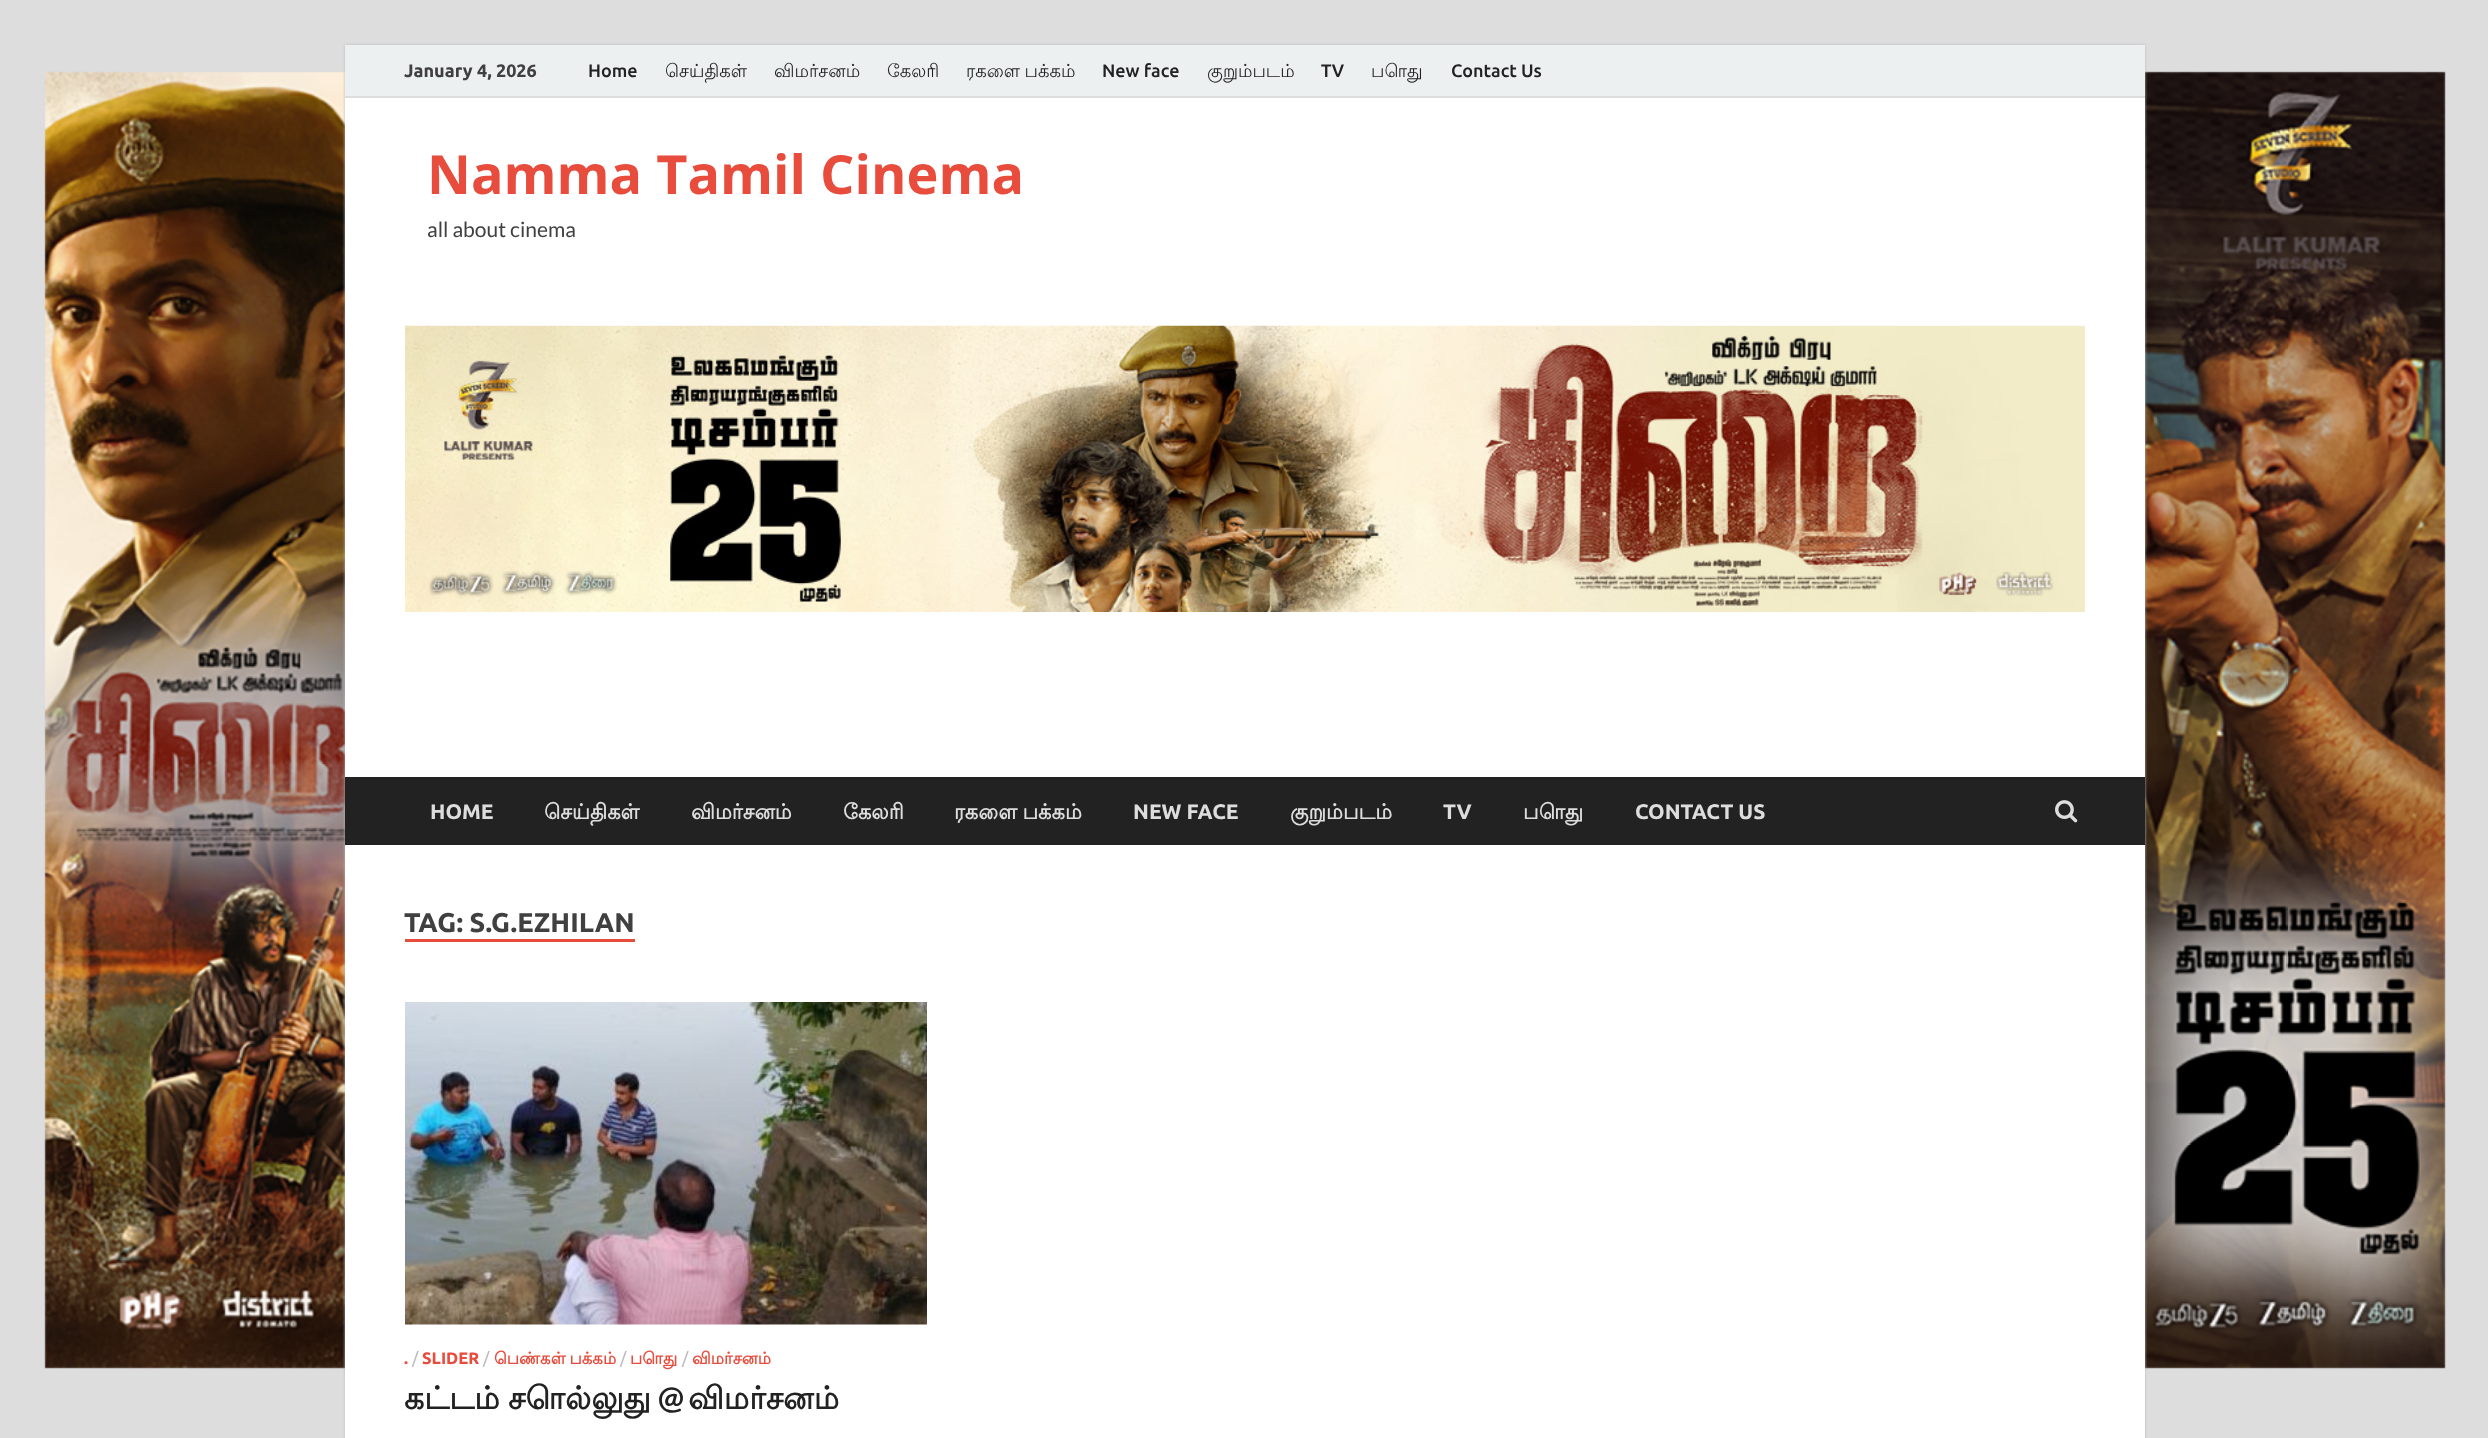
<svg xmlns="http://www.w3.org/2000/svg" xmlns:xlink="http://www.w3.org/1999/xlink" width="2488" height="1438" viewBox="0 0 2488 1438">
<style>
.cls-1{font:bold 18px Ubuntu;fill:#404040}
.cls-2{font:500 18px Ubuntu;fill:#222222}
.cls-3{font:18px Lohit Tamil;fill:#222222}
.cls-4{font:bold 54px Open Sans;fill:#e74c3c}
.cls-5{font:21px Lato;fill:#404040}
.cls-6{font:bold 21px Ubuntu;fill:#dddddd}
.cls-7{font:bold 21px Lohit Tamil;fill:#dddddd}
.cls-8{font:bold 27px Ubuntu;fill:#404040}
.cls-9{font:bold 16.5px Ubuntu;fill:#e74c3c}
.cls-10{font:16.5px Ubuntu;fill:#bbbbbb}
.cls-11{font:bold 16.5px Lohit Tamil;fill:#e74c3c}
.cls-12{font:bold 31.5px Lohit Tamil;fill:#222222}
.cls-13{font:bold 31.5px Lato;fill:#222222}
</style>
<defs>
<clipPath id="clip1"><rect x="428" y="140" width="597" height="105"/></clipPath>
</defs>
<rect width="100%" height="100%" fill="#dddddd"/>
<image xlink:href="image0.png" x="44" y="71" width="2402" height="1298"/>
<rect fill="#bbbbbb" filter="blur(1.5px)" x="345" y="45" width="1800" height="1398"/>
<rect fill="#ffffff" x="345" y="98" width="1800" height="1340"/>
<rect fill="#ecf0f1" x="345" y="45" width="1800" height="51"/>
<rect fill="#dddddd" x="345" y="96" width="1800" height="2"/>
<image xlink:href="image1.png" x="405" y="325" width="1680" height="287"/>
<rect fill="#222222" x="345" y="777" width="1800" height="68"/>
<image xlink:href="image2.png" x="2055" y="800" width="23" height="23"/>
<rect fill="#e74c3c" x="405" y="939" width="230" height="3"/>
<image xlink:href="image3.png" x="405" y="1002" width="522" height="323"/>
<text class="cls-1" x="404" y="77">January 4, 2026</text>
<text class="cls-2" x="588" y="77">Home</text>
<text class="cls-3" x="665" y="77">செய்திகள்</text>
<text class="cls-3" x="774" y="77">விமர்சனம்</text>
<text class="cls-3" x="887" y="77">கேலரி</text>
<text class="cls-3" x="966" y="77" word-spacing="-1">ரகளை பக்கம்</text>
<text class="cls-2" x="1102" y="77">New face</text>
<text class="cls-3" x="1207" y="77">குறும்படம்</text>
<text class="cls-2" x="1321" y="77">TV</text>
<text class="cls-3" x="1371" y="77">பொது</text>
<text class="cls-2" x="1451" y="77">Contact Us</text>
<text class="cls-4" x="427" y="194">Namma Tamil Cinema</text>
<g clip-path="url(#clip1)">
<text class="cls-5" x="427" y="237">all about cinema</text>
</g>
<text class="cls-6" x="430" y="819">HOME</text>
<text class="cls-7" x="544" y="819">செய்திகள்</text>
<text class="cls-7" x="691" y="819">விமர்சனம்</text>
<text class="cls-7" x="843" y="819">கேலரி</text>
<text class="cls-7" x="954" y="819" word-spacing="-1">ரகளை பக்கம்</text>
<text class="cls-6" x="1133" y="819">NEW FACE</text>
<text class="cls-7" x="1290" y="819">குறும்படம்</text>
<text class="cls-6" x="1443" y="819">TV</text>
<text class="cls-7" x="1523" y="819">பொது</text>
<text class="cls-6" x="1635" y="819">CONTACT US</text>
<text class="cls-8" x="404" y="932">TAG: S.G.EZHILAN</text>
<text class="cls-9" x="404" y="1364">.</text>
<text class="cls-10" x="412" y="1364">/</text>
<text class="cls-9" x="422" y="1364">SLIDER</text>
<text class="cls-10" x="483" y="1364">/</text>
<text class="cls-11" x="494" y="1364" word-spacing="-1">பெண்கள் பக்கம்</text>
<text class="cls-10" x="620" y="1364">/</text>
<text class="cls-11" x="630" y="1364">பொது</text>
<text class="cls-10" x="682" y="1364">/</text>
<text class="cls-11" x="692" y="1364">விமர்சனம்</text>
<text class="cls-12" x="404" y="1409" word-spacing="-1">கட்டம் சொல்லுது</text>
<text class="cls-13" x="658" y="1409">@</text>
<text class="cls-12" x="688" y="1409">விமர்சனம்</text>
</svg>
